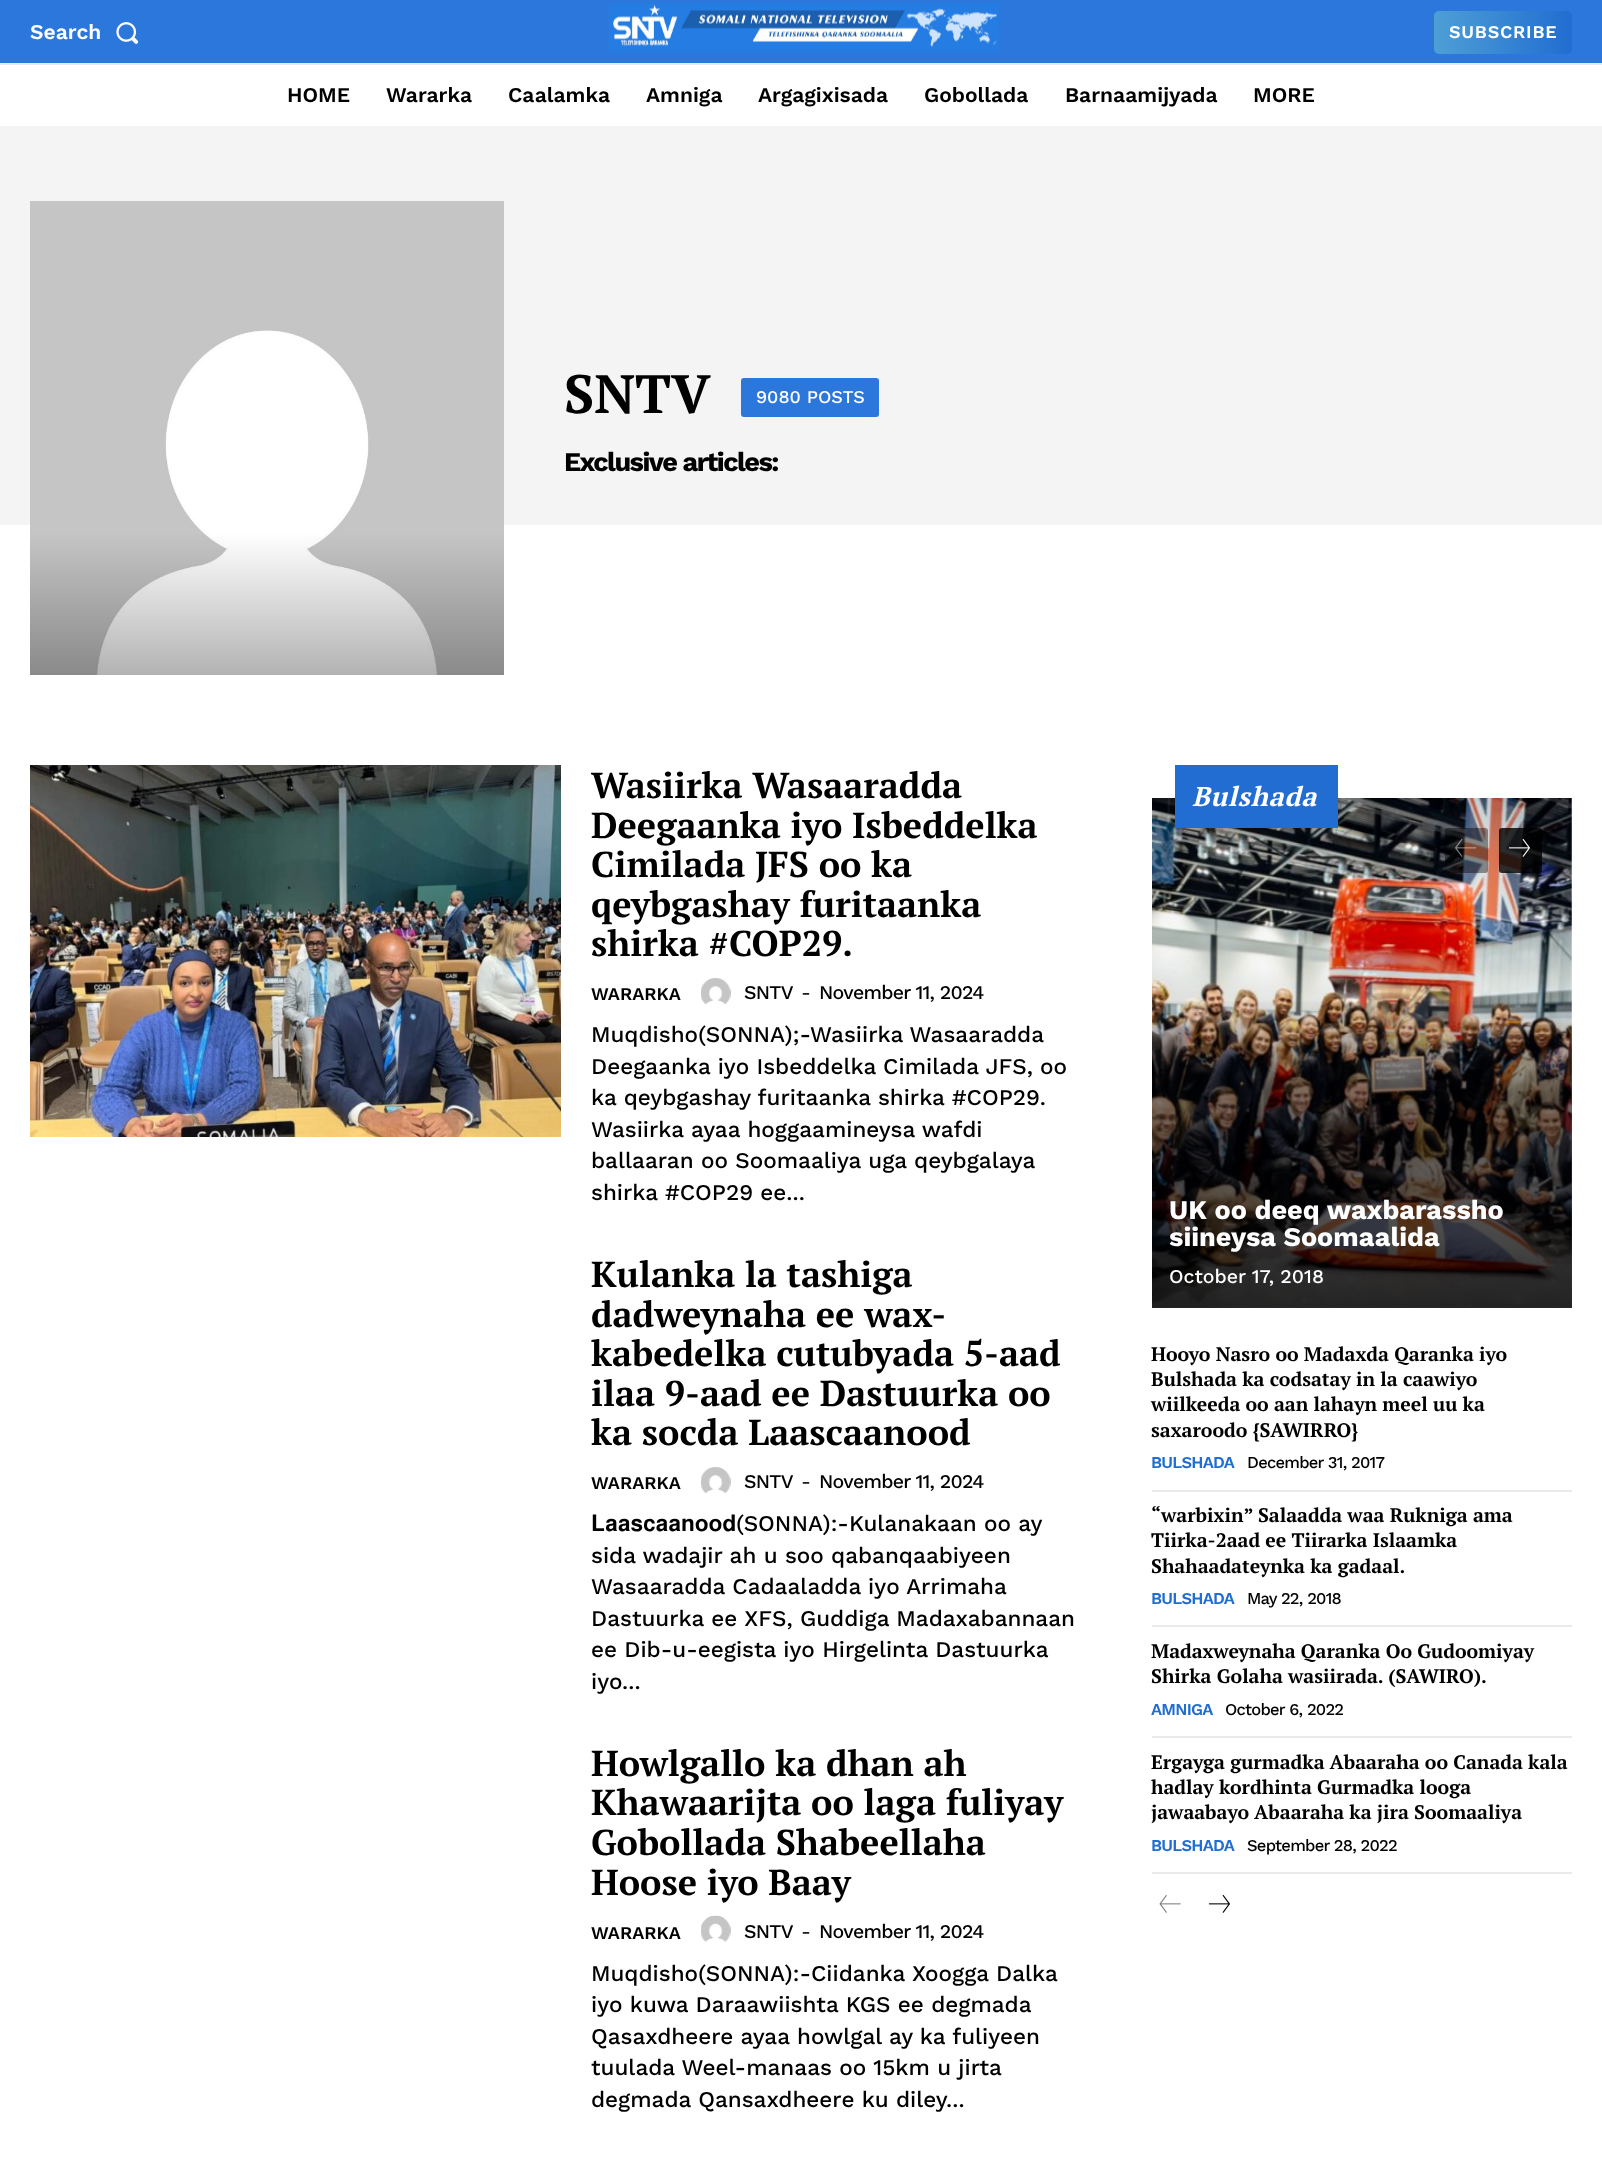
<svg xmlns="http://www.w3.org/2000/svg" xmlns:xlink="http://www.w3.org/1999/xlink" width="1602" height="2166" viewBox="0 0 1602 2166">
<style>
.cls-1{font:600 21px Work Sans;fill:#ffffff}
.cls-2{font:600 18px Work Sans;letter-spacing:0.75px;fill:#ffffff}
.cls-3{font:600 21px Work Sans;fill:#000000}
.cls-4{font:bold 54px PT Serif;fill:#000000}
.cls-5{font:500 18px Work Sans;fill:#ffffff}
.cls-6{font:bold 27px Work Sans;letter-spacing:-1.5px;fill:#000000}
.cls-7{font:bold 36px PT Serif;fill:#000000}
.cls-8{font:600 18px Work Sans;fill:#000000}
.cls-9{font:500 19.5px Work Sans;letter-spacing:-0.75px;fill:#000000}
.cls-10{font:19.5px Work Sans;letter-spacing:-0.75px;fill:#000000}
.cls-11{font:500 22.5px Work Sans;fill:#000000}
.cls-12{font:22.5px FreeSans;fill:#000000}
.cls-13{font:italic bold 27px PT Serif;letter-spacing:0.75px;fill:#ffffff}
.cls-14{font:bold 27px Work Sans;fill:#ffffff}
.cls-15{font:500 19.5px Work Sans;fill:#ffffff}
.cls-16{font:bold 19.5px PT Serif;fill:#000000}
.cls-17{font:600 16.5px Work Sans;letter-spacing:-0.75px;fill:#216dd1}
.cls-18{font:500 16.5px Work Sans;letter-spacing:-0.75px;fill:#000000}
</style>
<defs>
<linearGradient id="g1" gradientUnits="userSpaceOnUse" x1="1572" y1="32" x2="1434" y2="32"><stop offset="0" stop-color="#216dd1"/><stop offset="1" stop-color="#4d9fd6"/></linearGradient>
<linearGradient id="g2" gradientUnits="userSpaceOnUse" x1="1362" y1="1308" x2="1362" y2="798"><stop offset="0" stop-color="#000000" stop-opacity="0.8"/><stop offset="0.42" stop-color="#000000" stop-opacity="0.5"/><stop offset="0.61" stop-color="#000000" stop-opacity="0"/><stop offset="1" stop-color="#000000" stop-opacity="0"/></linearGradient>
</defs>
<rect width="100%" height="100%" fill="#ffffff"/>
<rect fill="#2b77db" x="0" y="0" width="1602" height="63"/>
<image xlink:href="image0.png" x="116" y="22" width="23" height="22"/>
<image xlink:href="image1.png" x="609" y="3" width="390" height="49"/>
<rect fill="url(#g1)" x="1434" y="11" width="138" height="43" rx="5"/>
<rect fill="#eaeaea" x="0" y="63" width="1602" height="2"/>
<rect fill="#f4f4f4" x="0" y="126" width="1602" height="399"/>
<image xlink:href="image2.png" x="30" y="201" width="474" height="474"/>
<rect fill="#2b77db" x="741" y="378" width="138" height="39" rx="3"/>
<image xlink:href="image3.png" x="30" y="765" width="531" height="372"/>
<image xlink:href="image4.png" x="701" y="978" width="30" height="27"/>
<image xlink:href="image5.png" x="701" y="1467" width="30" height="27"/>
<image xlink:href="image6.png" x="701" y="1915" width="30" height="27"/>
<image xlink:href="image9.png" x="1152" y="798" width="420" height="510"/>
<rect fill="#216dd1" x="1175" y="765" width="163" height="63"/>
<rect fill="#000000" fill-opacity="0.4" x="1445" y="828" width="43" height="45" rx="3"/>
<image xlink:href="image7.png" x="1455" y="839" width="22" height="18"/>
<rect fill="#000000" fill-opacity="0.8" x="1499" y="828" width="43" height="45" rx="3"/>
<image xlink:href="image8.png" x="1508" y="838" width="22" height="19"/>
<rect fill="url(#g2)" x="1152" y="1001" width="420" height="307"/>
<rect fill="#eaeaea" x="1152" y="1490" width="420" height="2"/>
<rect fill="#eaeaea" x="1152" y="1625" width="420" height="2"/>
<rect fill="#eaeaea" x="1152" y="1736" width="420" height="2"/>
<rect fill="#eaeaea" x="1152" y="1872" width="420" height="2"/>
<image xlink:href="image10.png" x="1159" y="1895" width="22" height="18"/>
<image xlink:href="image11.png" x="1208" y="1894" width="22" height="19"/>
<text class="cls-1" x="30" y="39">Search</text>
<text class="cls-2" x="1449" y="38">SUBSCRIBE</text>
<text class="cls-3" x="287" y="102">HOME</text>
<text class="cls-3" x="386" y="102">Wararka</text>
<text class="cls-3" x="508" y="102">Caalamka</text>
<text class="cls-3" x="646" y="102">Amniga</text>
<text class="cls-3" x="758" y="102">Argagixisada</text>
<text class="cls-3" x="924" y="102">Gobollada</text>
<text class="cls-3" x="1065" y="102">Barnaamijyada</text>
<text class="cls-3" x="1253" y="102">MORE</text>
<text class="cls-4" x="564" y="413">SNTV</text>
<text class="cls-5" x="756" y="403">9080 POSTS</text>
<text class="cls-6" x="564" y="471">Exclusive articles:</text>
<text class="cls-7"><tspan x="591" y="798">Wasiirka Wasaaradda</tspan><tspan x="591" y="838">Deegaanka iyo Isbeddelka</tspan><tspan x="591" y="877">Cimilada JFS oo ka</tspan><tspan x="591" y="917">qeybgashay furitaanka</tspan><tspan x="591" y="956">shirka #COP29.</tspan></text>
<text class="cls-8" x="591" y="1000">WARARKA</text>
<text class="cls-9" x="744" y="999">SNTV</text>
<text class="cls-10" x="801" y="999">-</text>
<text class="cls-9" x="819" y="999">November 11, 2024</text>
<text class="cls-11"><tspan x="591" y="1042">Muqdisho(SONNA);-Wasiirka Wasaaradda</tspan><tspan x="591" y="1074">Deegaanka iyo Isbeddelka Cimilada JFS, oo</tspan><tspan x="591" y="1105">ka qeybgashay furitaanka shirka #COP29.</tspan><tspan x="591" y="1137">Wasiirka ayaa hoggaamineysa wafdi</tspan><tspan x="591" y="1168">ballaaran oo Soomaaliya uga qeybgalaya</tspan><tspan x="591" y="1200">shirka #COP29 ee...</tspan></text>
<text class="cls-7"><tspan x="591" y="1287">Kulanka la tashiga</tspan><tspan x="591" y="1327">dadweynaha ee wax-</tspan><tspan x="591" y="1366">kabedelka cutubyada 5-aad</tspan><tspan x="591" y="1406">ilaa 9-aad ee Dastuurka oo</tspan><tspan x="591" y="1445">ka socda Laascaanood</tspan></text>
<text class="cls-8" x="591" y="1489">WARARKA</text>
<text class="cls-9" x="744" y="1488">SNTV</text>
<text class="cls-10" x="801" y="1488">-</text>
<text class="cls-9" x="819" y="1488">November 11, 2024</text>
<text class="cls-12" x="591" y="1531">𝐋𝐚𝐚𝐬𝐜𝐚𝐚𝐧𝐨𝐨𝐝</text>
<text class="cls-11" x="736" y="1531">(SONNA):-Kulanakaan oo ay</text>
<text class="cls-11"><tspan x="591" y="1563">sida wadajir ah u soo qabanqaabiyeen</tspan><tspan x="591" y="1594">Wasaaradda Cadaaladda iyo Arrimaha</tspan><tspan x="591" y="1626">Dastuurka ee XFS, Guddiga Madaxabannaan</tspan><tspan x="591" y="1657">ee Dib-u-eegista iyo Hirgelinta Dastuurka</tspan><tspan x="591" y="1689">iyo...</tspan></text>
<text class="cls-7"><tspan x="591" y="1776">Howlgallo ka dhan ah</tspan><tspan x="591" y="1815">Khawaarijta oo laga fuliyay</tspan><tspan x="591" y="1855">Gobollada Shabeellaha</tspan><tspan x="591" y="1895">Hoose iyo Baay</tspan></text>
<text class="cls-8" x="591" y="1939">WARARKA</text>
<text class="cls-9" x="744" y="1938">SNTV</text>
<text class="cls-10" x="801" y="1938">-</text>
<text class="cls-9" x="819" y="1938">November 11, 2024</text>
<text class="cls-11"><tspan x="591" y="1981">Muqdisho(SONNA):-Ciidanka Xoogga Dalka</tspan><tspan x="591" y="2012">iyo kuwa Daraawiishta KGS ee degmada</tspan><tspan x="591" y="2044">Qasaxdheere ayaa howlgal ay ka fuliyeen</tspan><tspan x="591" y="2075">tuulada Weel-manaas oo 15km u jirta</tspan><tspan x="591" y="2107">degmada Qansaxdheere ku diley...</tspan></text>
<text class="cls-13" x="1192" y="806">Bulshada</text>
<text class="cls-14"><tspan x="1169" y="1219">UK oo deeq waxbarassho</tspan><tspan x="1169" y="1246">siineysa Soomaalida</tspan></text>
<text class="cls-15" x="1169" y="1283">October 17, 2018</text>
<text class="cls-16"><tspan x="1151" y="1361">Hooyo Nasro oo Madaxda Qaranka iyo</tspan><tspan x="1151" y="1386">Bulshada ka codsatay in la caawiyo</tspan><tspan x="1151" y="1411">wiilkeeda oo aan lahayn meel uu ka</tspan><tspan x="1151" y="1437">saxaroodo {SAWIRRO}</tspan></text>
<text class="cls-17" x="1151" y="1468">BULSHADA</text>
<text class="cls-18" x="1247" y="1468">December 31, 2017</text>
<text class="cls-16"><tspan x="1151" y="1522">“warbixin” Salaadda waa Rukniga ama</tspan><tspan x="1151" y="1547">Tiirka-2aad ee Tiirarka Islaamka</tspan><tspan x="1151" y="1573">Shahaadateynka ka gadaal.</tspan></text>
<text class="cls-17" x="1151" y="1604">BULSHADA</text>
<text class="cls-18" x="1247" y="1604">May 22, 2018</text>
<text class="cls-16"><tspan x="1151" y="1658">Madaxweynaha Qaranka Oo Gudoomiyay</tspan><tspan x="1151" y="1683">Shirka Golaha wasiirada. (SAWIRO).</tspan></text>
<text class="cls-17" x="1151" y="1715">AMNIGA</text>
<text class="cls-18" x="1225" y="1715">October 6, 2022</text>
<text class="cls-16"><tspan x="1151" y="1769">Ergayga gurmadka Abaaraha oo Canada kala</tspan><tspan x="1151" y="1794">hadlay kordhinta Gurmadka looga</tspan><tspan x="1151" y="1819">jawaabayo Abaaraha ka jira Soomaaliya</tspan></text>
<text class="cls-17" x="1151" y="1851">BULSHADA</text>
<text class="cls-18" x="1247" y="1851">September 28, 2022</text>
</svg>
